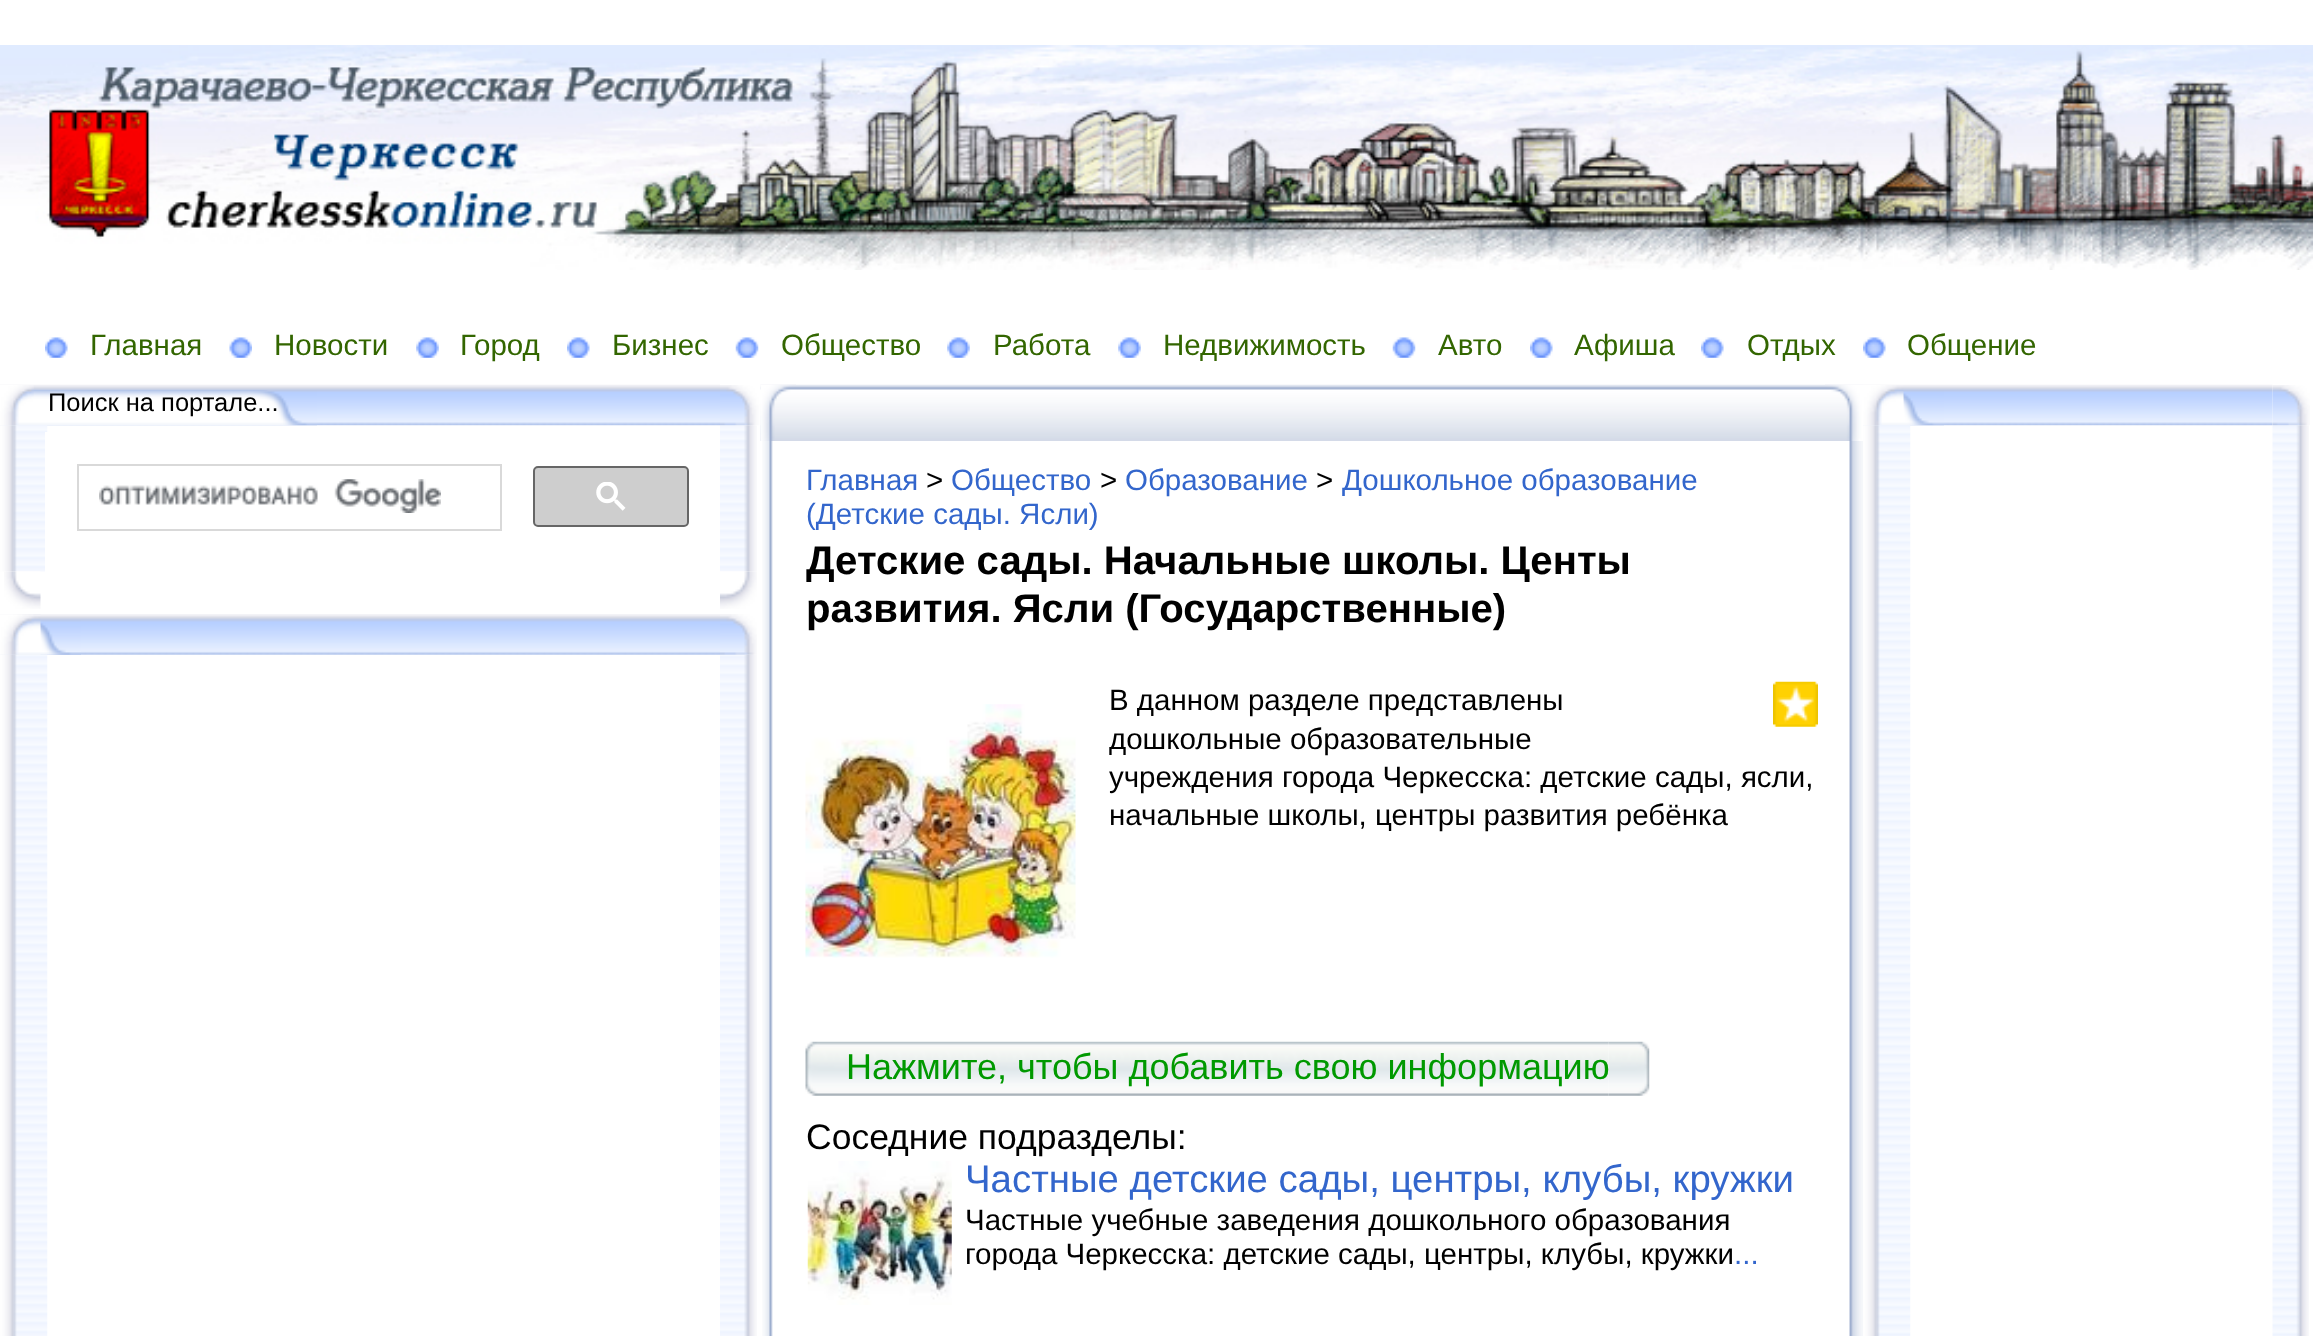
<svg xmlns="http://www.w3.org/2000/svg" xmlns:xlink="http://www.w3.org/1999/xlink" width="2313" height="1336" viewBox="0 0 2313 1336">
<style>
.cls-1{font:29.5px Liberation Sans;fill:#336600}
.cls-2{font:25.5px Liberation Sans;fill:#000000}
.cls-3{font:29.5px Liberation Sans;fill:#3366cc}
.cls-4{font:29.5px Liberation Sans;fill:#000000}
.cls-5{font:bold 40.15px Liberation Sans;fill:#000000}
.cls-6{font:36px Liberation Sans;fill:#009900}
.cls-7{font:35.5px Liberation Sans;fill:#000000}
.cls-8{font:38.4px Liberation Sans;fill:#3366cc}
</style>
<rect width="100%" height="100%" fill="#ffffff"/>
<image xlink:href="image0.png" x="0" y="45" width="2313" height="225"/>
<image xlink:href="image1.png" x="45" y="337" width="23" height="21"/>
<image xlink:href="image2.png" x="229" y="337" width="23" height="21"/>
<image xlink:href="image3.png" x="416" y="337" width="23" height="21"/>
<image xlink:href="image4.png" x="567" y="337" width="23" height="21"/>
<image xlink:href="image5.png" x="735" y="337" width="24" height="21"/>
<image xlink:href="image6.png" x="947" y="337" width="23" height="21"/>
<image xlink:href="image3.png" x="1118" y="337" width="23" height="21"/>
<image xlink:href="image7.png" x="1392" y="337" width="24" height="21"/>
<image xlink:href="image4.png" x="1530" y="337" width="23" height="21"/>
<image xlink:href="image1.png" x="1701" y="337" width="23" height="21"/>
<image xlink:href="image4.png" x="1863" y="337" width="23" height="21"/>
<image xlink:href="image8.png" x="0" y="384" width="720" height="42"/>
<image xlink:href="image9.png" x="0" y="390" width="317" height="36"/>
<image xlink:href="image10.png" x="0" y="385" width="34" height="40"/>
<image xlink:href="image15.png" x="720" y="425" width="37" height="147"/>
<image xlink:href="image30.png" x="760" y="384" width="1103" height="57"/>
<image xlink:href="image11.png" x="720" y="385" width="41" height="41"/>
<image xlink:href="image12.png" x="0" y="425" width="48" height="147"/>
<rect fill="#ffffff" x="45" y="432" width="3" height="140"/>
<rect fill="none" stroke="#d9d9d9" stroke-width="2" x="78" y="465" width="423" height="65"/>
<image xlink:href="image13.png" x="99" y="479" width="342" height="34"/>
<rect fill="#cecece" stroke="#666666" stroke-width="2" x="534" y="467" width="154" height="59" rx="4"/>
<image xlink:href="image14.png" x="596" y="482" width="30" height="29"/>
<image xlink:href="image16.png" x="4" y="571" width="37" height="38"/>
<image xlink:href="image17.png" x="720" y="571" width="37" height="38"/>
<image xlink:href="image18.png" x="0" y="614" width="720" height="41"/>
<image xlink:href="image19.png" x="0" y="619" width="81" height="36"/>
<image xlink:href="image22.png" x="0" y="654" width="48" height="682"/>
<image xlink:href="image20.png" x="0" y="614" width="41" height="41"/>
<image xlink:href="image23.png" x="720" y="654" width="37" height="682"/>
<image xlink:href="image21.png" x="720" y="614" width="37" height="41"/>
<image xlink:href="image24.png" x="1863" y="384" width="410" height="42"/>
<image xlink:href="image25.png" x="1863" y="390" width="81" height="36"/>
<image xlink:href="image26.png" x="1863" y="385" width="41" height="40"/>
<image xlink:href="image29.png" x="2272" y="425" width="37" height="911"/>
<image xlink:href="image27.png" x="2272" y="385" width="38" height="41"/>
<image xlink:href="image28.png" x="1863" y="425" width="48" height="911"/>
<image xlink:href="image31.png" x="1825" y="384" width="38" height="57"/>
<image xlink:href="image32.png" x="760" y="384" width="36" height="57"/>
<image xlink:href="image33.png" x="762" y="441" width="11" height="895"/>
<image xlink:href="image34.png" x="1849" y="441" width="14" height="895"/>
<image xlink:href="image35.png" x="1773" y="681" width="45" height="46"/>
<image xlink:href="image36.png" x="805" y="704" width="271" height="254"/>
<image xlink:href="image37.png" x="1608" y="1041" width="42" height="55"/>
<image xlink:href="image38.png" x="805" y="1041" width="804" height="55"/>
<image xlink:href="image39.png" x="807" y="1161" width="145" height="144"/>
<text class="cls-1" x="90" y="355">Главная</text>
<text class="cls-1" x="274" y="355">Новости</text>
<text class="cls-1" x="460" y="355">Город</text>
<text class="cls-1" x="612" y="355">Бизнес</text>
<text class="cls-1" x="781" y="355">Общество</text>
<text class="cls-1" x="993" y="355">Работа</text>
<text class="cls-1" x="1163" y="355">Недвижимость</text>
<text class="cls-1" x="1438" y="355">Авто</text>
<text class="cls-1" x="1574" y="355">Афиша</text>
<text class="cls-1" x="1747" y="355">Отдых</text>
<text class="cls-1" x="1907" y="355">Общение</text>
<text class="cls-2" x="48" y="411">Поиск на портале...</text>
<text class="cls-3" x="806" y="490">Главная</text>
<text class="cls-4" x="926" y="490">&gt;</text>
<text class="cls-3" x="951" y="490">Общество</text>
<text class="cls-4" x="1100" y="490">&gt;</text>
<text class="cls-3" x="1125" y="490">Образование</text>
<text class="cls-4" x="1316" y="490">&gt;</text>
<text class="cls-3" x="1342" y="490">Дошкольное образование</text>
<text class="cls-3" x="806" y="524">(Детские сады. Ясли)</text>
<text class="cls-5"><tspan x="806" y="574">Детские сады. Начальные школы. Центы</tspan><tspan x="806" y="622">развития. Ясли (Государственные)</tspan></text>
<text class="cls-4"><tspan x="1109" y="710">В данном разделе представлены</tspan><tspan x="1109" y="749">дошкольные образовательные</tspan><tspan x="1109" y="787">учреждения города Черкесска: детские сады, ясли,</tspan><tspan x="1109" y="825">начальные школы, центры развития ребёнка</tspan></text>
<text class="cls-6" x="846" y="1079">Нажмите, чтобы добавить свою информацию</text>
<text class="cls-7" x="806" y="1149">Соседние подразделы:</text>
<text class="cls-8" x="965" y="1192">Частные детские сады, центры, клубы, кружки</text>
<text class="cls-4"><tspan x="965" y="1230">Частные учебные заведения дошкольного образования</tspan><tspan x="965" y="1264">города Черкесска: детские сады, центры, клубы, кружки</tspan></text>
<text class="cls-3" x="1734" y="1264">...</text>
</svg>
